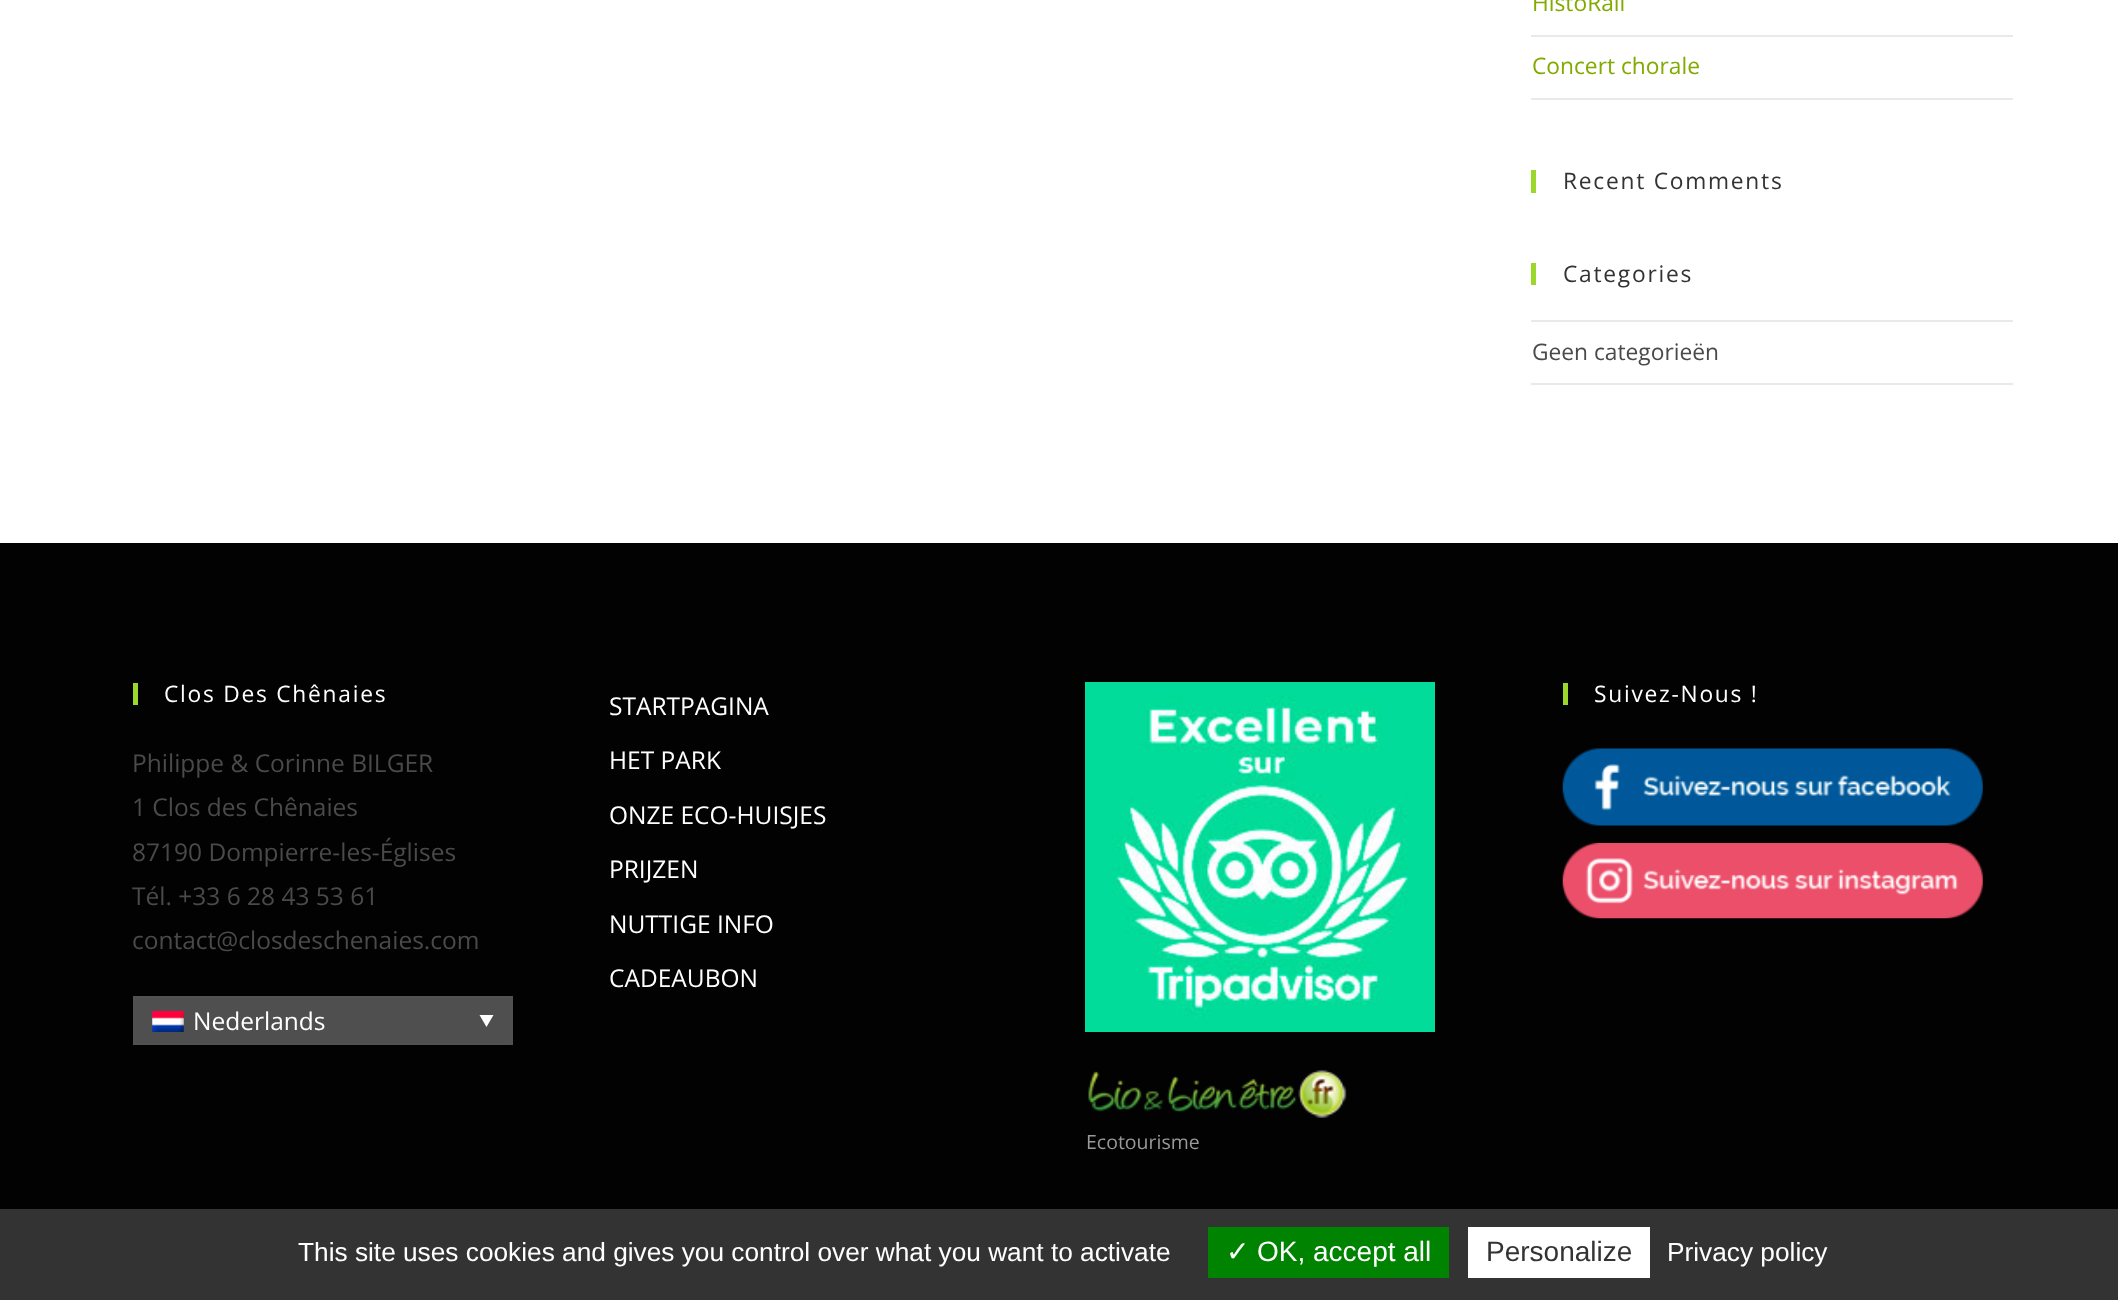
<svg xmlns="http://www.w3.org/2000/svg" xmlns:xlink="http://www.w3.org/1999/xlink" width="2118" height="1300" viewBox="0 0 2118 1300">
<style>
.cls-1{font:22.75px Open Sans;fill:#82aa00}
.cls-2{font:22.75px Open Sans;letter-spacing:1.75px;fill:#333333}
.cls-3{font:22.75px Open Sans;fill:#4a4a4a}
.cls-4{font:22.75px Open Sans;letter-spacing:1.75px;fill:#ffffff}
.cls-5{font:24.5px Open Sans;fill:#4a4a4a}
.cls-6{font:24.5px Open Sans;fill:#ffffff}
.cls-7{font:19.5px Open Sans;fill:#999999}
.cls-8{font:26.25px Liberation Sans;fill:#ffffff}
.cls-9{font:28px DejaVu Sans;fill:#ffffff}
.cls-10{font:28px Liberation Sans;fill:#ffffff}
.cls-11{font:28px Liberation Sans;fill:#333333}
</style>
<rect width="100%" height="100%" fill="#ffffff"/>
<rect fill="#e9e9e9" x="1531" y="35" width="482" height="2"/>
<rect fill="#e9e9e9" x="1531" y="98" width="482" height="2"/>
<rect fill="#9cd82c" x="1531" y="170" width="5" height="23"/>
<rect fill="#9cd82c" x="1531" y="263" width="5" height="22"/>
<rect fill="#e9e9e9" x="1531" y="320" width="482" height="2"/>
<rect fill="#e9e9e9" x="1531" y="383" width="482" height="2"/>
<rect fill="#020202" x="0" y="543" width="2118" height="666"/>
<rect fill="#9cd82c" x="133" y="683" width="5" height="22"/>
<rect fill="#4f4f4f" stroke="#515151" stroke-width="2" x="134" y="997" width="378" height="47"/>
<image xlink:href="image0.png" x="152" y="1011" width="32" height="21"/>
<path fill="#ffffff" d="M479.5 1015H493.5L486.5 1027Z"/>
<rect fill="#9cd82c" x="1563" y="683" width="5" height="22"/>
<image xlink:href="image1.png" x="1562" y="748" width="421" height="78"/>
<image xlink:href="image2.png" x="1562" y="843" width="421" height="76"/>
<image xlink:href="image3.png" x="1085" y="682" width="350" height="350"/>
<image xlink:href="image4.png" x="1088" y="1070" width="259" height="48"/>
<rect fill="#333333" x="0" y="1209" width="2118" height="91"/>
<rect fill="#008300" x="1208" y="1227" width="241" height="51"/>
<rect fill="#ffffff" x="1468" y="1227" width="182" height="51"/>
<text class="cls-1" x="1532" y="11">HistoRail</text>
<text class="cls-1" x="1532" y="74">Concert chorale</text>
<text class="cls-2" x="1563" y="189">Recent Comments</text>
<text class="cls-2" x="1563" y="282">Categories</text>
<text class="cls-3" x="1532" y="360">Geen categorieën</text>
<text class="cls-4" x="164" y="702">Clos Des Chênaies</text>
<text class="cls-5"><tspan x="132" y="772">Philippe &amp; Corinne BILGER</tspan><tspan x="132" y="816">1 Clos des Chênaies</tspan><tspan x="132" y="861">87190 Dompierre-les-Églises</tspan><tspan x="132" y="905">Tél. +33 6 28 43 53 61</tspan><tspan x="132" y="949">contact@closdeschenaies.com</tspan></text>
<text class="cls-6" x="193" y="1030">Nederlands</text>
<text class="cls-4" x="1594" y="702">Suivez-Nous !</text>
<text class="cls-6" x="609" y="715">STARTPAGINA</text>
<text class="cls-6" x="609" y="769">HET PARK</text>
<text class="cls-6" x="609" y="824">ONZE ECO-HUISJES</text>
<text class="cls-6" x="609" y="878">PRIJZEN</text>
<text class="cls-6" x="609" y="933">NUTTIGE INFO</text>
<text class="cls-6" x="609" y="987">CADEAUBON</text>
<text class="cls-7" x="1086" y="1149">Ecotourisme</text>
<text class="cls-8" x="298" y="1261">This site uses cookies and gives you control over what you want to activate</text>
<text class="cls-9" x="1226" y="1261">✓</text>
<text class="cls-10" x="1257" y="1261">OK, accept all</text>
<text class="cls-11" x="1486" y="1261">Personalize</text>
<text class="cls-8" x="1667" y="1261">Privacy policy</text>
</svg>
